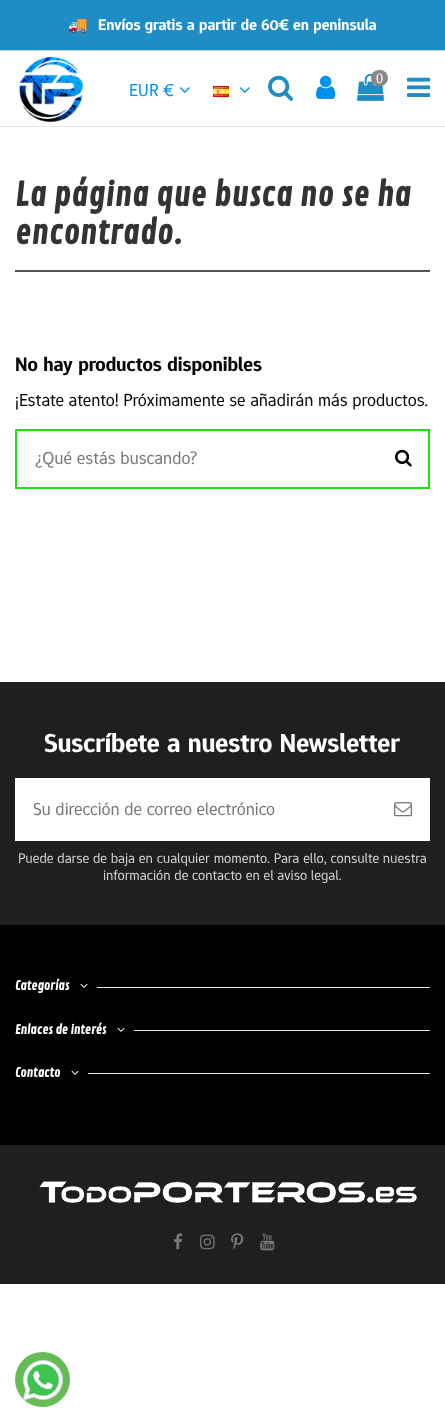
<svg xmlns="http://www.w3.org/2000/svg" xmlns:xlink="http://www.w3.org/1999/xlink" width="445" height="1422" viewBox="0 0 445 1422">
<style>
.cls-1{font:16px Noto Color Emoji;fill:#ffffff}
.cls-2{font:bold 16px Epunda Sans;fill:#ffffff}
.cls-3{font:18px Epunda Sans;fill:#0091ef}
.cls-4{font:14.4px Liberation Serif;fill:#ffffff}
.cls-5{font:bold 32.4px Contrail One;letter-spacing:0.5px;fill:#333333}
.cls-6{font:bold 20.25px Epunda Sans;fill:#070606}
.cls-7{font:18px Epunda Sans;fill:#070606}
.cls-8{font:18px Epunda Sans;fill:#777777}
.cls-9{font:bold 27px Epunda Sans;fill:#ffffff}
.cls-10{font:14.4px Epunda Sans;fill:#d2d2d2}
.cls-11{font:bold 12.5px Contrail One;fill:#ffffff}
</style>
<rect width="100%" height="100%" fill="#ffffff"/>
<rect fill="#1e8cc5" x="0" y="0" width="445" height="50"/>
<rect fill="#cfcfcf" x="0" y="50" width="445" height="1"/>
<rect fill="#e3e3e3" x="0" y="126" width="445" height="1"/>
<image xlink:href="image0.png" x="19" y="56" width="64" height="66"/>
<image xlink:href="image1.png" x="179" y="87" width="11" height="6"/>
<image xlink:href="image2.png" x="213" y="86" width="16" height="11"/>
<image xlink:href="image1.png" x="239" y="87" width="11" height="6"/>
<image xlink:href="image3.png" x="268" y="75" width="25" height="26"/>
<image xlink:href="image4.png" x="316" y="75" width="20" height="24"/>
<image xlink:href="image5.png" x="357" y="73" width="27" height="28"/>
<rect fill="#888888" x="371" y="70" width="17" height="16" rx="8"/>
<image xlink:href="image6.png" x="407" y="77" width="24" height="20"/>
<rect fill="#595050" x="15" y="270" width="415" height="2"/>
<rect fill="none" stroke="#20de10" stroke-width="2" x="16" y="430" width="413" height="58"/>
<image xlink:href="image7.png" x="395" y="449" width="17" height="18"/>
<rect fill="#000000" x="0" y="925" width="445" height="220"/>
<rect fill="#1f1f1f" x="0" y="682" width="445" height="243"/>
<rect fill="#ffffff" x="15" y="778" width="415" height="63"/>
<image xlink:href="image8.png" x="394" y="802" width="18" height="15"/>
<image xlink:href="image9.png" x="80" y="983" width="8" height="5"/>
<rect fill="#e3e3e3" x="97" y="987" width="333" height="1"/>
<image xlink:href="image9.png" x="117" y="1027" width="8" height="5"/>
<rect fill="#e3e3e3" x="134" y="1030" width="296" height="1"/>
<image xlink:href="image9.png" x="71" y="1070" width="8" height="5"/>
<rect fill="#e3e3e3" x="88" y="1073" width="342" height="1"/>
<circle fill="#65bc54" cx="42.5" cy="1379.5" r="27.5"/>
<image xlink:href="image10.png" x="23" y="1360" width="40" height="40"/>
<rect fill="#1f1f1f" x="0" y="1145" width="445" height="139"/>
<image xlink:href="image11.png" x="39" y="1181" width="378" height="22"/>
<image xlink:href="image12.png" x="173" y="1233" width="10" height="17"/>
<image xlink:href="image13.png" x="200" y="1234" width="15" height="16"/>
<image xlink:href="image14.png" x="231" y="1233" width="13" height="17"/>
<image xlink:href="image15.png" x="260" y="1233" width="15" height="18"/>
<text class="cls-1" x="68" y="30">🚚</text>
<text class="cls-2" x="98" y="30">Envíos gratis a partir de 60€ en peninsula</text>
<text class="cls-3" x="129" y="96">EUR €</text>
<text class="cls-4" x="376" y="83">0</text>
<text class="cls-5"><tspan x="15" y="206">La página que busca no se ha</tspan><tspan x="15" y="244">encontrado.</tspan></text>
<text class="cls-6" x="15" y="371">No hay productos disponibles</text>
<text class="cls-7" x="15" y="406">¡Estate atento! Próximamente se añadirán más productos.</text>
<text class="cls-8" x="35" y="464">¿Qué estás buscando?</text>
<text class="cls-9" x="44" y="752">Suscríbete a nuestro Newsletter</text>
<text class="cls-8" x="33" y="815">Su dirección de correo electrónico</text>
<text class="cls-10" x="18" y="863">Puede darse de baja en cualquier momento. Para ello, consulte nuestra</text>
<text class="cls-10" x="103" y="880">información de contacto en el aviso legal.</text>
<text class="cls-11" x="15" y="990">Categorías</text>
<text class="cls-11" x="15" y="1034">Enlaces de interés</text>
<text class="cls-11" x="15" y="1077">Contacto</text>
</svg>
